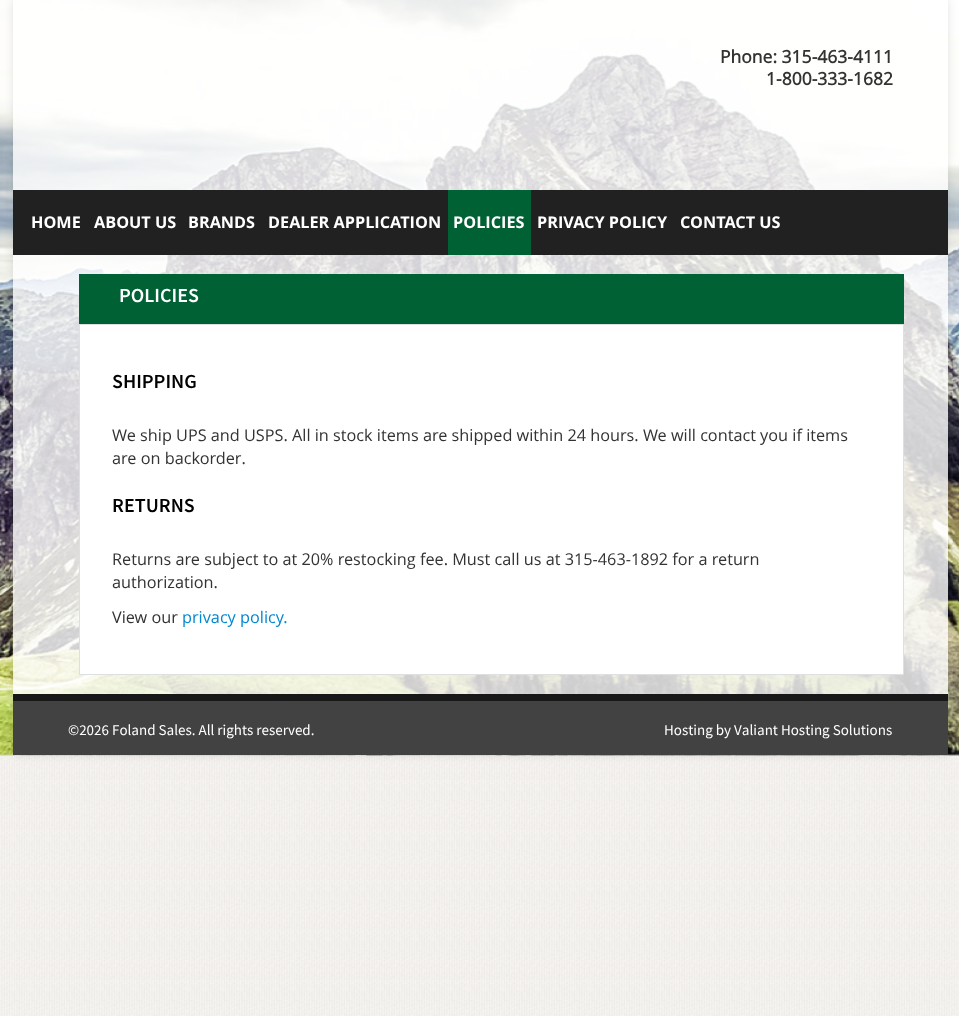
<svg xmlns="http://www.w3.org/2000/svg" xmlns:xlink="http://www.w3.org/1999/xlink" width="959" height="1016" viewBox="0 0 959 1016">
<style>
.cls-1{font:bold 17.5px Open Sans;fill:#333333}
.cls-2{font:bold 16.25px 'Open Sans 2';fill:#ffffff}
.cls-3{font:600 20px Source Sans Pro;fill:#ffffff}
.cls-4{font:600 20px Source Sans Pro;fill:#000000}
.cls-5{font:16.25px Open Sans;fill:#333333}
.cls-6{font:16.25px Open Sans;fill:#0288d1}
.cls-7{font:15px Source Sans Pro;fill:#ffffff}
</style>
<defs>
<clipPath id="clip1"><path d="M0 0H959V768H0ZM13 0H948V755H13Z" clip-rule="evenodd"/></clipPath>
</defs>
<rect width="100%" height="100%" fill="#ffffff"/>
<image xlink:href="image0.png" x="0" y="754" width="959" height="262"/>
<image xlink:href="image1.png" x="0" y="0" width="959" height="756"/>
<g clip-path="url(#clip1)">
<rect fill="#000000" fill-opacity="0.1" filter="blur(4px)" x="13" y="0" width="935" height="755"/>
</g>
<rect fill="#ffffff" fill-opacity="0.8" x="13" y="0" width="935" height="694"/>
<rect fill="#212121" x="13" y="190" width="935" height="65"/>
<rect fill="#006135" x="448" y="190" width="83" height="65"/>
<rect fill="#006135" x="79" y="274" width="825" height="50"/>
<rect fill="#ffffff" stroke="#dedfe0" x="79.5" y="324.5" width="824" height="350"/>
<rect fill="#424242" x="13" y="701" width="935" height="54"/>
<rect fill="#191818" x="13" y="694" width="935" height="7"/>
<text class="cls-1" x="720" y="63">Phone: 315-463-4111</text>
<text class="cls-1" x="766" y="85">1-800-333-1682</text>
<text class="cls-2" x="31" y="228">HOME</text>
<text class="cls-2" x="94" y="228">ABOUT US</text>
<text class="cls-2" x="188" y="228">BRANDS</text>
<text class="cls-2" x="268" y="228">DEALER APPLICATION</text>
<text class="cls-2" x="453" y="228">POLICIES</text>
<text class="cls-2" x="537" y="228">PRIVACY POLICY</text>
<text class="cls-2" x="680" y="228">CONTACT US</text>
<text class="cls-3" x="119" y="302">POLICIES</text>
<text class="cls-4" x="112" y="388">SHIPPING</text>
<text class="cls-5"><tspan x="112" y="441">We ship UPS and USPS. All in stock items are shipped within 24 hours. We will contact you if items</tspan><tspan x="112" y="464">are on backorder.</tspan></text>
<text class="cls-4" x="112" y="512">RETURNS</text>
<text class="cls-5"><tspan x="112" y="565">Returns are subject to at 20% restocking fee. Must call us at 315-463-1892 for a return</tspan><tspan x="112" y="588">authorization.</tspan></text>
<text class="cls-5" x="112" y="623">View our</text>
<text class="cls-6" x="182" y="623">privacy policy.</text>
<text class="cls-7" x="68" y="735">©2026 Foland Sales. All rights reserved.</text>
<text class="cls-7" x="664" y="735">Hosting by Valiant Hosting Solutions</text>
</svg>
